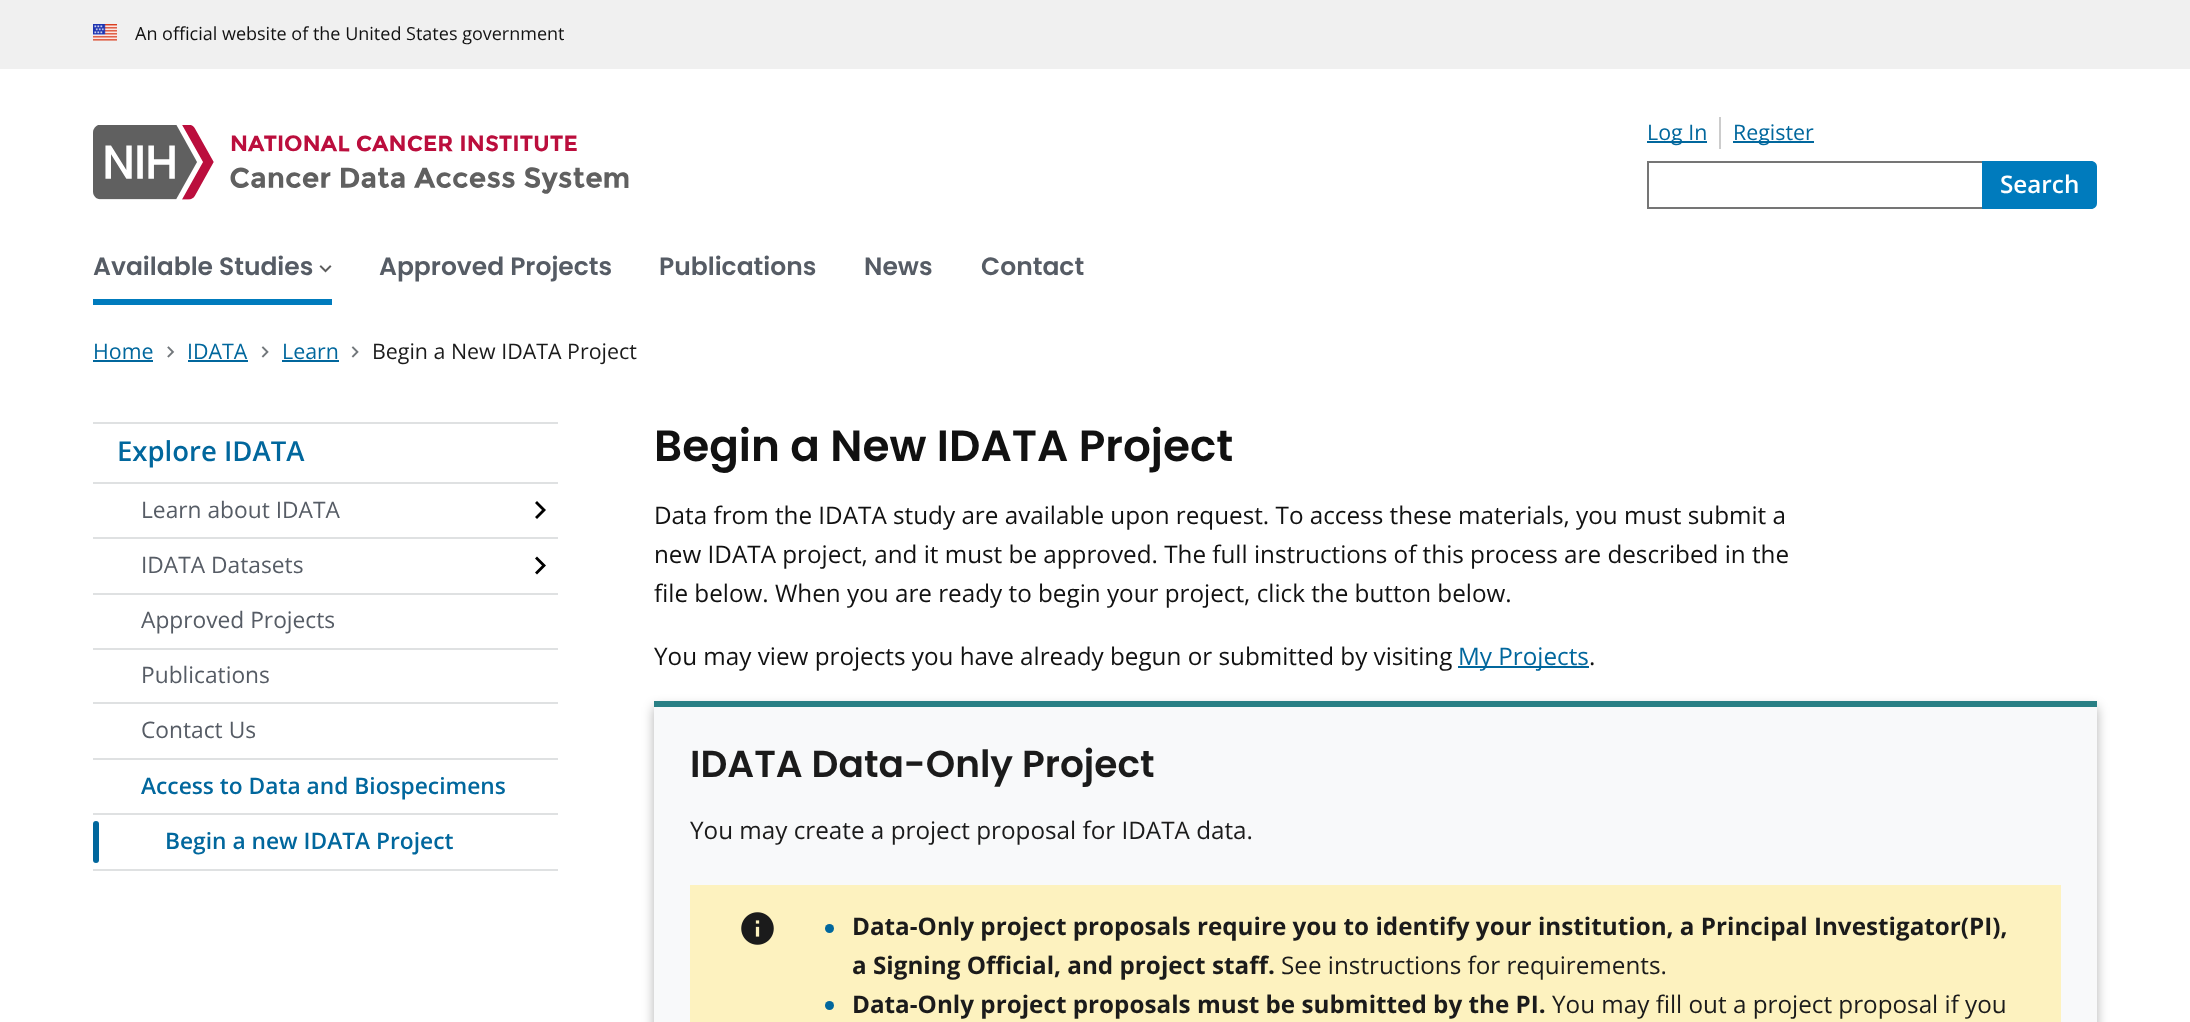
<svg xmlns="http://www.w3.org/2000/svg" xmlns:xlink="http://www.w3.org/1999/xlink" width="2190" height="1022" viewBox="0 0 2190 1022">
<style>
.cls-1{font:18px Open Sans;fill:#111111}
.cls-2{font:21.4px Open Sans;fill:#01679d}
.cls-3{font:600 24.25px Open Sans;fill:#ffffff}
.cls-4{font:600 25px Poppins;fill:#565c65}
.cls-5{font:21.4px Open Sans;fill:#1b1b1b}
.cls-6{font:600 27.5px Open Sans;fill:#01679d}
.cls-7{font:22.75px Open Sans;fill:#565c65}
.cls-8{font:600 22.75px Open Sans;fill:#01679d}
.cls-9{font:600 43.75px Poppins;fill:#111111}
.cls-10{font:24.25px Open Sans;fill:#111111}
.cls-11{font:24.25px Open Sans;fill:#01679d}
.cls-12{font:600 37.5px Poppins;fill:#1b1b1b}
.cls-13{font:24.25px Open Sans;fill:#1b1b1b}
.cls-14{font:bold 24.25px Open Sans;fill:#1b1b1b}
</style>
<rect width="100%" height="100%" fill="#ffffff"/>
<rect fill="#f0f0f0" x="0" y="0" width="2190" height="69"/>
<image xlink:href="image0.png" x="93" y="24" width="24" height="17"/>
<image xlink:href="image1.png" x="93" y="125" width="536" height="75"/>
<rect fill="#01679d" x="1647" y="141" width="60" height="2"/>
<rect fill="#cccccc" x="1719" y="117" width="2" height="32"/>
<rect fill="#01679d" x="1733" y="141" width="81" height="2"/>
<rect fill="#757575" x="1647" y="161" width="335" height="2"/>
<rect fill="#757575" x="1647" y="207" width="335" height="2"/>
<rect fill="#757575" x="1647" y="161" width="2" height="48"/>
<path fill="#007bbd" d="M1982 161H2091C2094.5 161 2097 163.5 2097 167V203C2097 206.5 2094.5 209 2091 209H1982Z"/>
<image xlink:href="image2.png" x="319" y="265" width="13" height="8"/>
<rect fill="#007bbd" x="93" y="299" width="239" height="6"/>
<rect fill="#01679d" x="93" y="360" width="60" height="2"/>
<image xlink:href="image3.png" x="167" y="346" width="8" height="12"/>
<rect fill="#01679d" x="188" y="360" width="60" height="2"/>
<image xlink:href="image4.png" x="261" y="346" width="8" height="12"/>
<rect fill="#01679d" x="282" y="360" width="57" height="2"/>
<image xlink:href="image4.png" x="351" y="346" width="8" height="12"/>
<rect fill="#dfe1e2" x="93" y="869" width="465" height="2"/>
<rect fill="#dfe1e2" x="93" y="422" width="465" height="2"/>
<rect fill="#dfe1e2" x="93" y="482" width="465" height="2"/>
<path fill="#000000" d="M537 501L535 503L542 510L535 517L537 519L546 510Z"/>
<rect fill="#dfe1e2" x="93" y="537" width="465" height="2"/>
<path fill="#000000" d="M537 556.5L535 558.5L542 565.5L535 572.5L537 574.5L546 565.5Z"/>
<rect fill="#dfe1e2" x="93" y="593" width="465" height="2"/>
<rect fill="#dfe1e2" x="93" y="648" width="465" height="2"/>
<rect fill="#dfe1e2" x="93" y="702" width="465" height="2"/>
<rect fill="#dfe1e2" x="93" y="758" width="465" height="2"/>
<rect fill="#dfe1e2" x="93" y="813" width="465" height="2"/>
<rect fill="#01679d" x="93" y="821" width="6" height="42" rx="3"/>
<rect fill="#01679d" x="1458" y="666" width="131" height="2"/>
<rect fill="#000000" fill-opacity="0.3" filter="blur(6px)" x="654" y="707" width="1443" height="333"/>
<rect fill="#f8f9fa" x="654" y="707" width="1443" height="315"/>
<rect fill="#298085" x="654" y="701" width="1443" height="6"/>
<rect fill="#fdf2bf" x="690" y="885" width="1371" height="137"/>
<image xlink:href="image5.png" x="741" y="912" width="33" height="33"/>
<circle fill="#01679d" cx="829.5" cy="928.5" r="4.5"/>
<circle fill="#01679d" cx="829.5" cy="1005.5" r="4.5"/>
<text class="cls-1" x="135" y="40">An official website of the United States government</text>
<text class="cls-2" x="1647" y="140">Log In</text>
<text class="cls-2" x="1733" y="140">Register</text>
<text class="cls-3" x="2000" y="193">Search</text>
<text class="cls-4" x="93" y="275">Available Studies</text>
<text class="cls-4" x="379" y="275">Approved Projects</text>
<text class="cls-4" x="659" y="275">Publications</text>
<text class="cls-4" x="864" y="275">News</text>
<text class="cls-4" x="981" y="275">Contact</text>
<text class="cls-2" x="93" y="359">Home</text>
<text class="cls-2" x="187" y="359">IDATA</text>
<text class="cls-2" x="282" y="359">Learn</text>
<text class="cls-5" x="372" y="359">Begin a New IDATA Project</text>
<text class="cls-6" x="117" y="461">Explore IDATA</text>
<text class="cls-7" x="141" y="518">Learn about IDATA</text>
<text class="cls-7" x="141" y="573">IDATA Datasets</text>
<text class="cls-7" x="141" y="628">Approved Projects</text>
<text class="cls-7" x="141" y="683">Publications</text>
<text class="cls-7" x="141" y="738">Contact Us</text>
<text class="cls-8" x="141" y="794">Access to Data and Biospecimens</text>
<text class="cls-8" x="165" y="849">Begin a new IDATA Project</text>
<text class="cls-9" x="654" y="461">Begin a New IDATA Project</text>
<text class="cls-10"><tspan x="654" y="524">Data from the IDATA study are available upon request. To access these materials, you must submit a</tspan><tspan x="654" y="563">new IDATA project, and it must be approved. The full instructions of this process are described in the</tspan><tspan x="654" y="602">file below. When you are ready to begin your project, click the button below.</tspan></text>
<text class="cls-10" x="654" y="665">You may view projects you have already begun or submitted by visiting</text>
<text class="cls-11" x="1458" y="665">My Projects</text>
<text class="cls-10" x="1589" y="665">.</text>
<text class="cls-12" x="690" y="777">IDATA Data-Only Project</text>
<text class="cls-13" x="690" y="839">You may create a project proposal for IDATA data.</text>
<text class="cls-14"><tspan x="852" y="935">Data-Only project proposals require you to identify your institution, a Principal Investigator(PI),</tspan><tspan x="852" y="974">a Signing Official, and project staff.</tspan></text>
<text class="cls-13" x="1281" y="974">See instructions for requirements.</text>
<text class="cls-14" x="852" y="1013">Data-Only project proposals must be submitted by the PI.</text>
<text class="cls-13" x="1552" y="1013">You may fill out a project proposal if you</text>
</svg>
